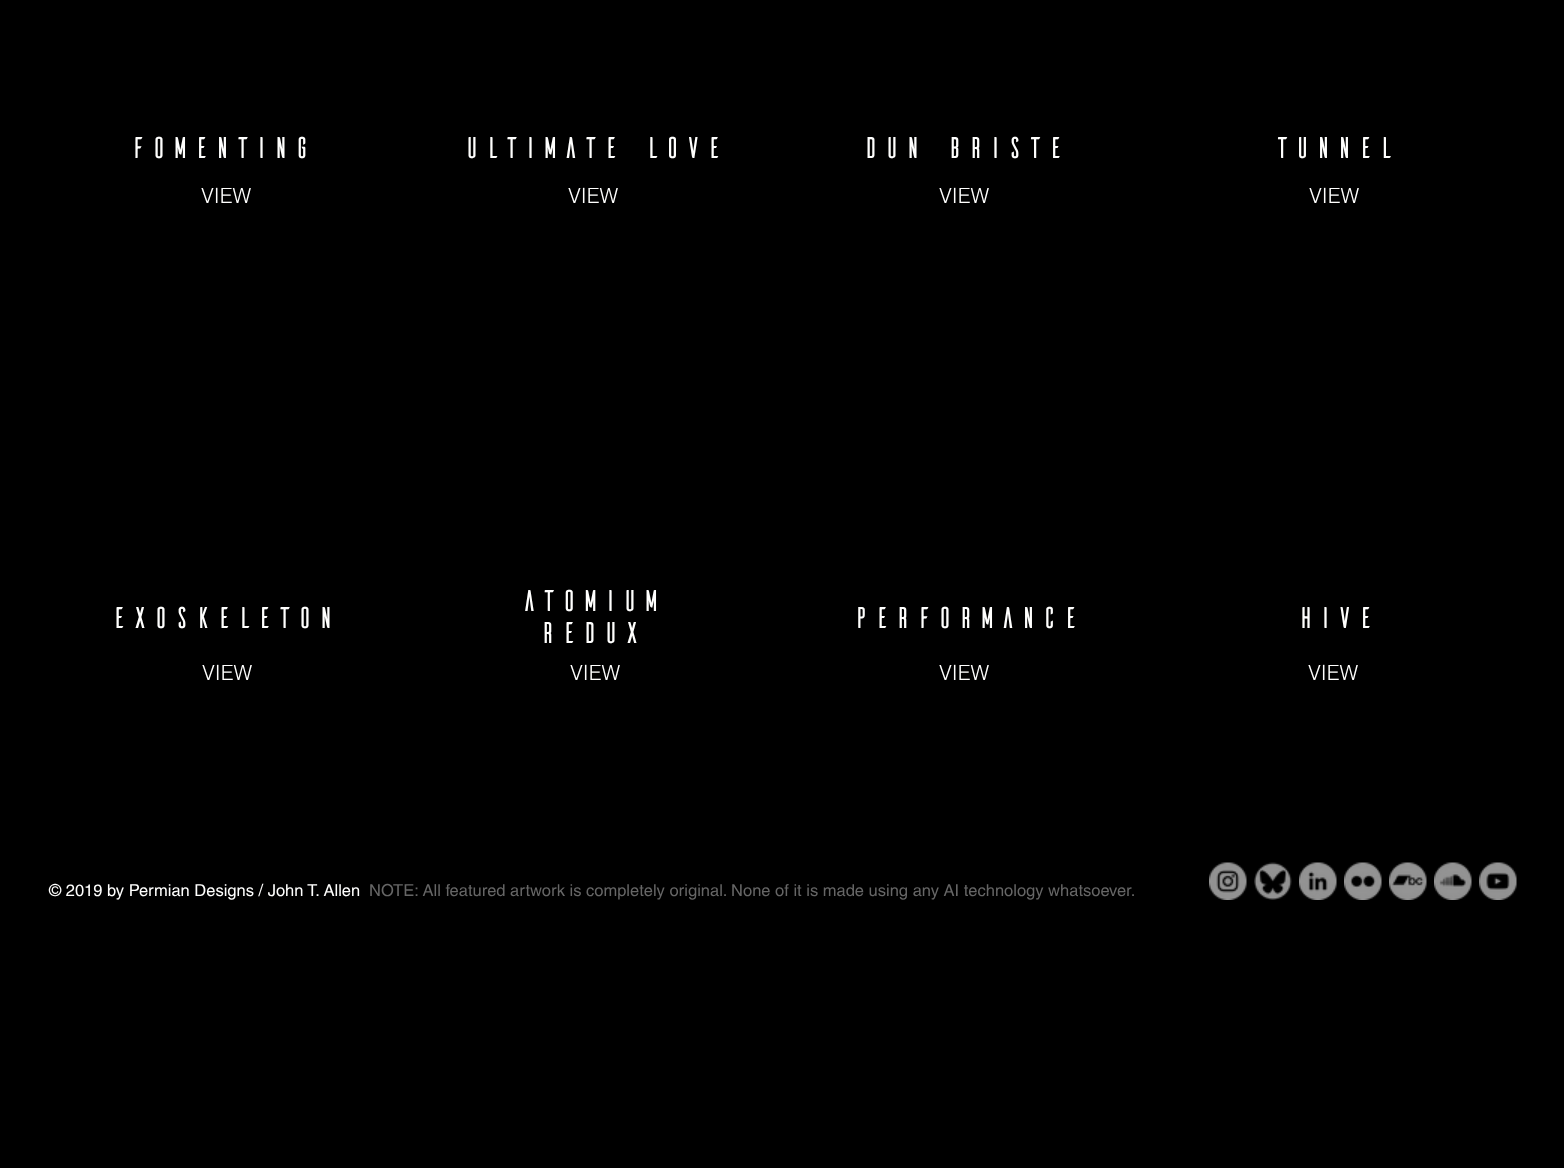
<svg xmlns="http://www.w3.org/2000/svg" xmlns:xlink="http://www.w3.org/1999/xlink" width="1564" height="1168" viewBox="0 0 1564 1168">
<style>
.cls-1{font:30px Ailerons;letter-spacing:3px;fill:#fffffe}
.cls-2{font:300 21px helvetica;fill:#fffffe}
.cls-3{font:16.5px helvetica;fill:#fffffe}
.cls-4{font:16.5px helvetica;fill:#666666}
</style>
<rect width="100%" height="100%" fill="#000000"/>
<image xlink:href="image0.png" x="1209" y="862" width="38" height="38"/>
<image xlink:href="image1.png" x="1254" y="862" width="38" height="38"/>
<image xlink:href="image2.png" x="1299" y="862" width="38" height="38"/>
<image xlink:href="image3.png" x="1344" y="862" width="38" height="38"/>
<image xlink:href="image4.png" x="1389" y="862" width="38" height="38"/>
<image xlink:href="image5.png" x="1434" y="862" width="38" height="38"/>
<image xlink:href="image6.png" x="1479" y="862" width="38" height="38"/>
<text class="cls-1" x="129" y="158">fomenting</text>
<text class="cls-2" x="201" y="203">VIEW</text>
<text class="cls-1" x="463" y="158">ultimate love</text>
<text class="cls-2" x="568" y="203">VIEW</text>
<text class="cls-1" x="862" y="158">dun briste</text>
<text class="cls-2" x="939" y="203">VIEW</text>
<text class="cls-1" x="1274" y="158">tunnel</text>
<text class="cls-2" x="1309" y="203">VIEW</text>
<text class="cls-1" x="110" y="628">exoskeleton</text>
<text class="cls-2" x="202" y="680">VIEW</text>
<text class="cls-1" x="521" y="611">atomium</text>
<text class="cls-1" x="539" y="643">redux</text>
<text class="cls-2" x="570" y="680">VIEW</text>
<text class="cls-1" x="852" y="628">PERFORMANCE</text>
<text class="cls-2" x="939" y="680">VIEW</text>
<text class="cls-1" x="1297" y="628">hive</text>
<text class="cls-2" x="1308" y="680">VIEW</text>
<text class="cls-3" x="49" y="896">© 2019 by Permian Designs / John T. Allen</text>
<text class="cls-4" x="369" y="896">NOTE: All featured artwork is completely original. None of it is made using any AI technology whatsoever.</text>
</svg>
